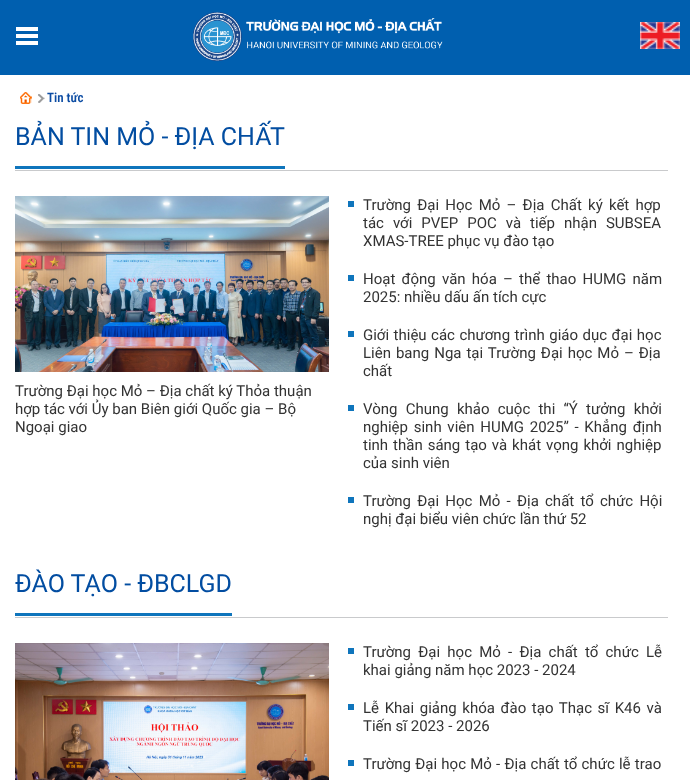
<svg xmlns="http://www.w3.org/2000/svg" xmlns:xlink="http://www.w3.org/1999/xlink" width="690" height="780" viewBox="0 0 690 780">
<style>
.cls-1{font:600 13px Roboto Condensed;fill:#0c4ca3}
.cls-2{font:25px Roboto;fill:#024da1}
.cls-3{font:15px Roboto;fill:#333333}
</style>
<rect width="100%" height="100%" fill="#ffffff"/>
<rect fill="#005faf" x="0" y="0" width="690" height="75"/>
<image xlink:href="image0.png" x="16" y="27" width="22" height="18"/>
<image xlink:href="image1.png" x="193" y="12" width="250" height="50"/>
<image xlink:href="image2.png" x="640" y="22" width="40" height="27"/>
<image xlink:href="image3.png" x="20" y="92" width="12" height="12"/>
<image xlink:href="image4.png" x="38" y="94" width="7" height="9"/>
<rect fill="#c9cacc" x="15" y="170" width="653" height="1"/>
<rect fill="#0f75bc" x="15" y="166" width="270" height="3"/>
<image xlink:href="image5.png" x="15" y="196" width="314" height="176"/>
<rect fill="#0f75bc" x="348" y="201" width="6" height="6"/>
<rect fill="#0f75bc" x="348" y="275" width="6" height="6"/>
<rect fill="#0f75bc" x="348" y="331" width="6" height="6"/>
<rect fill="#0f75bc" x="348" y="405" width="6" height="6"/>
<rect fill="#0f75bc" x="348" y="497" width="6" height="6"/>
<rect fill="#c9cacc" x="15" y="617" width="653" height="1"/>
<rect fill="#0f75bc" x="15" y="613" width="217" height="3"/>
<image xlink:href="image6.png" x="15" y="643" width="314" height="137"/>
<rect fill="#0f75bc" x="348" y="648" width="6" height="6"/>
<rect fill="#0f75bc" x="348" y="704" width="6" height="6"/>
<rect fill="#0f75bc" x="348" y="760" width="6" height="6"/>
<text class="cls-1" x="47" y="102">Tin tức</text>
<text class="cls-2" x="15" y="145">BẢN TIN MỎ - ĐỊA CHẤT</text>
<text class="cls-3"><tspan x="15" y="396">Trường Đại học Mỏ – Địa chất ký Thỏa thuận</tspan><tspan x="15" y="414">hợp tác với Ủy ban Biên giới Quốc gia – Bộ</tspan><tspan x="15" y="432">Ngoại giao</tspan></text>
<text class="cls-3"><tspan x="363" y="210" word-spacing="2.5">Trường Đại Học Mỏ – Địa Chất ký kết hợp</tspan><tspan x="363" y="228" word-spacing="5.25">tác với PVEP POC và tiếp nhận SUBSEA</tspan><tspan x="363" y="246">XMAS-TREE phục vụ đào tạo</tspan></text>
<text class="cls-3"><tspan x="363" y="284" word-spacing="2.5">Hoạt động văn hóa – thể thao HUMG năm</tspan><tspan x="363" y="302">2025: nhiều dấu ấn tích cực</tspan></text>
<text class="cls-3"><tspan x="363" y="340" word-spacing="0.75">Giới thiệu các chương trình giáo dục đại học</tspan><tspan x="363" y="358" word-spacing="1.25">Liên bang Nga tại Trường Đại học Mỏ – Địa</tspan><tspan x="363" y="376">chất</tspan></text>
<text class="cls-3"><tspan x="363" y="414" word-spacing="4.5">Vòng Chung khảo cuộc thi “Ý tưởng khởi</tspan><tspan x="363" y="432" word-spacing="2">nghiệp sinh viên HUMG 2025” - Khẳng định</tspan><tspan x="363" y="450" word-spacing="1.25">tinh thần sáng tạo và khát vọng khởi nghiệp</tspan><tspan x="363" y="468">của sinh viên</tspan></text>
<text class="cls-3"><tspan x="363" y="506" word-spacing="2.5">Trường Đại Học Mỏ - Địa chất tổ chức Hội</tspan><tspan x="363" y="524">nghị đại biểu viên chức lần thứ 52</tspan></text>
<text class="cls-2" x="15" y="592">ĐÀO TẠO - ĐBCLGD</text>
<text class="cls-3"><tspan x="363" y="657" word-spacing="3.5">Trường Đại học Mỏ - Địa chất tổ chức Lễ</tspan><tspan x="363" y="675">khai giảng năm học 2023 - 2024</tspan></text>
<text class="cls-3"><tspan x="363" y="713" word-spacing="1.9">Lễ Khai giảng khóa đào tạo Thạc sĩ K46 và</tspan><tspan x="363" y="731">Tiến sĩ 2023 - 2026</tspan></text>
<text class="cls-3" x="363" y="769" word-spacing="0.5">Trường Đại học Mỏ - Địa chất tổ chức lễ trao</text>
</svg>
